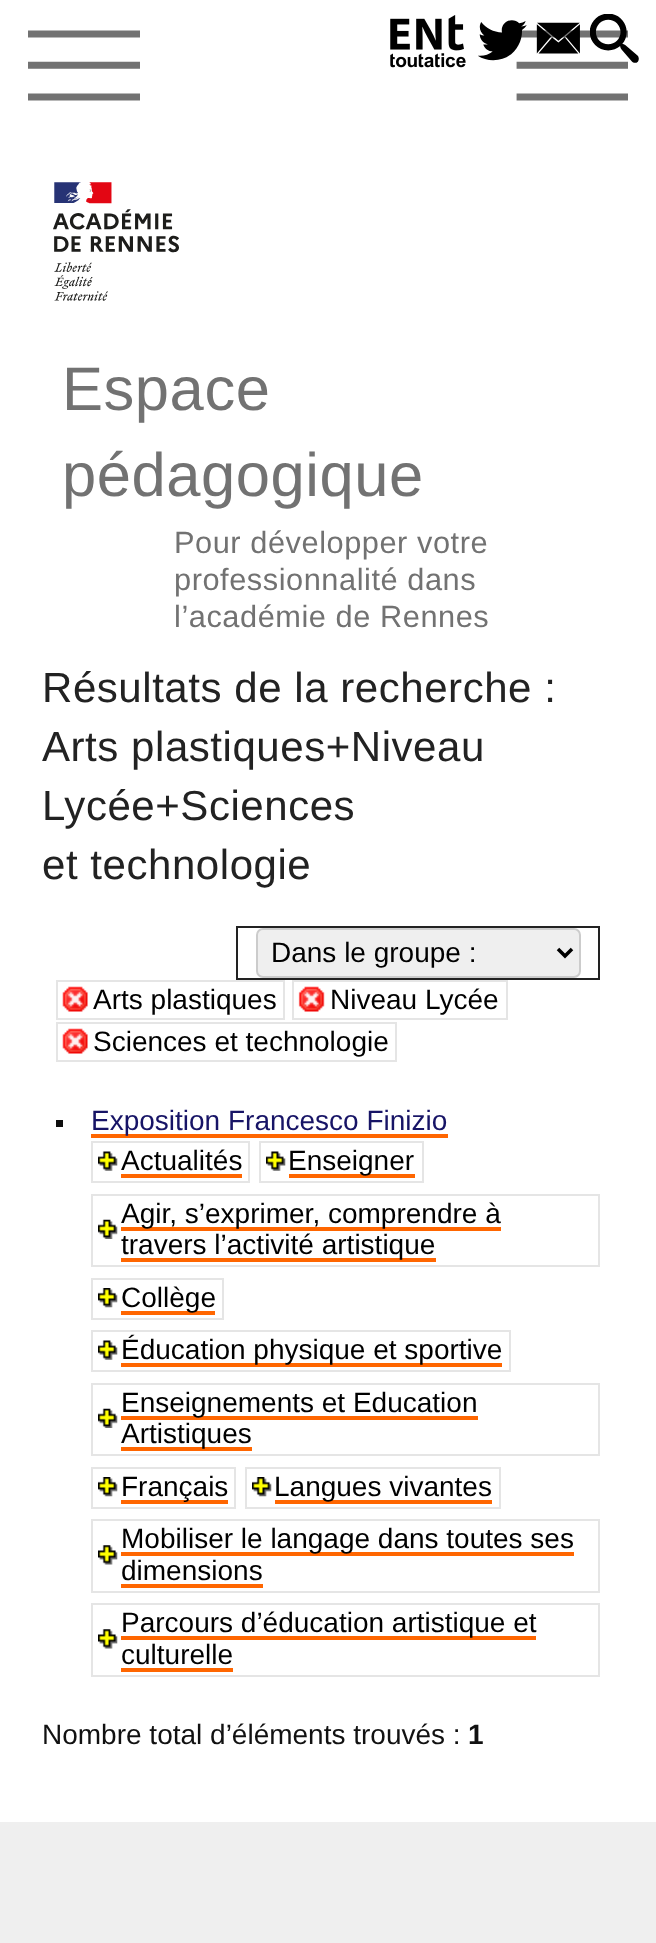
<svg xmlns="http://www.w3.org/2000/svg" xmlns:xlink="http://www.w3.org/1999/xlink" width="656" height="1943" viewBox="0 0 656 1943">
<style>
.cls-1{font:61.5px Liberation Sans;letter-spacing:0.55px;fill:#727272}
.cls-2{font:30.75px Liberation Sans;letter-spacing:0.55px;fill:#727272}
.cls-3{font:42px Liberation Sans;letter-spacing:0.55px;fill:#222222}
.cls-4{font:28px Liberation Sans;fill:#000000}
.cls-5{font:28px Liberation Sans;fill:#171466}
.cls-6{font:28px Liberation Sans;fill:#111111}
.cls-7{font:bold 28px Liberation Sans;fill:#111111}
</style>
<rect width="100%" height="100%" fill="#ffffff"/>
<image xlink:href="image0.png" x="390" y="15" width="76" height="53"/>
<image xlink:href="image5.png" x="516" y="30" width="112" height="71"/>
<image xlink:href="image1.png" x="478" y="20" width="49" height="41"/>
<image xlink:href="image2.png" x="536" y="22" width="44" height="32"/>
<image xlink:href="image3.png" x="590" y="14" width="49" height="49"/>
<image xlink:href="image4.png" x="28" y="30" width="112" height="71"/>
<image xlink:href="image6.png" x="53" y="182" width="126" height="119"/>
<rect fill="none" stroke="#222222" stroke-width="2" x="237" y="927" width="362" height="52"/>
<rect fill="#efefef" stroke="#cccccc" stroke-width="2" x="257" y="929" width="323" height="48" rx="6"/>
<path fill="none" stroke="#000000" stroke-width="3.5" d="M558 949L565 956L572 949"/>
<image xlink:href="image7.png" x="62" y="986" width="26" height="26"/>
<rect fill="none" stroke="#e5e5e5" stroke-width="2" x="57" y="981" width="227" height="38"/>
<image xlink:href="image8.png" x="298" y="986" width="27" height="26"/>
<rect fill="none" stroke="#e5e5e5" stroke-width="2" x="293" y="981" width="214" height="38"/>
<image xlink:href="image7.png" x="62" y="1028" width="26" height="26"/>
<rect fill="none" stroke="#e5e5e5" stroke-width="2" x="57" y="1023" width="339" height="38"/>
<rect fill="#0e0e0e" x="56" y="1120" width="7" height="7"/>
<rect fill="#ff6600" x="91" y="1134" width="357" height="4"/>
<image xlink:href="image9.png" x="98" y="1151" width="20" height="20"/>
<rect fill="none" stroke="#e5e5e5" stroke-width="2" x="92" y="1142" width="157" height="40"/>
<rect fill="#ff6600" x="121" y="1174" width="121" height="4"/>
<image xlink:href="image10.png" x="266" y="1151" width="20" height="20"/>
<rect fill="none" stroke="#e5e5e5" stroke-width="2" x="260" y="1142" width="163" height="40"/>
<rect fill="#ff6600" x="289" y="1174" width="126" height="4"/>
<image xlink:href="image11.png" x="98" y="1219" width="20" height="20"/>
<rect fill="none" stroke="#e5e5e5" stroke-width="2" x="92" y="1195" width="507" height="71"/>
<rect fill="#ff6600" x="121" y="1227" width="380" height="4"/>
<rect fill="#ff6600" x="121" y="1258" width="315" height="4"/>
<image xlink:href="image12.png" x="98" y="1288" width="20" height="20"/>
<rect fill="none" stroke="#e5e5e5" stroke-width="2" x="92" y="1279" width="131" height="40"/>
<rect fill="#ff6600" x="121" y="1311" width="94" height="4"/>
<image xlink:href="image9.png" x="98" y="1340" width="20" height="20"/>
<rect fill="none" stroke="#e5e5e5" stroke-width="2" x="92" y="1331" width="418" height="40"/>
<rect fill="#ff6600" x="121" y="1363" width="381" height="4"/>
<image xlink:href="image11.png" x="98" y="1408" width="20" height="20"/>
<rect fill="none" stroke="#e5e5e5" stroke-width="2" x="92" y="1384" width="507" height="71"/>
<rect fill="#ff6600" x="121" y="1416" width="357" height="4"/>
<rect fill="#ff6600" x="121" y="1447" width="131" height="4"/>
<image xlink:href="image12.png" x="98" y="1477" width="20" height="20"/>
<rect fill="none" stroke="#e5e5e5" stroke-width="2" x="92" y="1468" width="143" height="40"/>
<rect fill="#ff6600" x="121" y="1500" width="107" height="4"/>
<image xlink:href="image13.png" x="252" y="1477" width="20" height="20"/>
<rect fill="none" stroke="#e5e5e5" stroke-width="2" x="246" y="1468" width="254" height="40"/>
<rect fill="#ff6600" x="275" y="1500" width="217" height="4"/>
<image xlink:href="image14.png" x="98" y="1545" width="20" height="20"/>
<rect fill="none" stroke="#e5e5e5" stroke-width="2" x="92" y="1520" width="507" height="72"/>
<rect fill="#ff6600" x="121" y="1552" width="453" height="4"/>
<rect fill="#ff6600" x="121" y="1584" width="142" height="4"/>
<image xlink:href="image14.png" x="98" y="1629" width="20" height="20"/>
<rect fill="none" stroke="#e5e5e5" stroke-width="2" x="92" y="1604" width="507" height="72"/>
<rect fill="#ff6600" x="121" y="1636" width="415" height="4"/>
<rect fill="#ff6600" x="121" y="1668" width="112" height="4"/>
<rect fill="#efefef" x="0" y="1822" width="656" height="121"/>
<text class="cls-1"><tspan x="62" y="410">Espace</tspan><tspan x="62" y="496">pédagogique</tspan></text>
<text class="cls-2"><tspan x="174" y="553">Pour développer votre</tspan><tspan x="174" y="590">professionnalité dans</tspan><tspan x="174" y="627">l’académie de Rennes</tspan></text>
<text class="cls-3"><tspan x="42" y="702">Résultats de la recherche :</tspan><tspan x="42" y="761">Arts plastiques+Niveau</tspan><tspan x="42" y="820">Lycée+Sciences</tspan><tspan x="42" y="879">et technologie</tspan></text>
<text class="cls-4" x="271" y="962">Dans le groupe :</text>
<text class="cls-4" x="93" y="1009">Arts plastiques</text>
<text class="cls-4" x="330" y="1009">Niveau Lycée</text>
<text class="cls-4" x="93" y="1051">Sciences et technologie</text>
<text class="cls-5" x="91" y="1130">Exposition Francesco Finizio</text>
<text class="cls-4" x="121" y="1170">Actualités</text>
<text class="cls-4" x="288" y="1170">Enseigner</text>
<text class="cls-4"><tspan x="121" y="1223">Agir, s’exprimer, comprendre à</tspan><tspan x="121" y="1254">travers l’activité artistique</tspan><tspan x="121" y="1307">Collège</tspan><tspan x="121" y="1359">Éducation physique et sportive</tspan><tspan x="121" y="1412">Enseignements et Education</tspan><tspan x="121" y="1443">Artistiques</tspan><tspan x="121" y="1496">Français</tspan></text>
<text class="cls-4" x="274" y="1496">Langues vivantes</text>
<text class="cls-4"><tspan x="121" y="1548">Mobiliser le langage dans toutes ses</tspan><tspan x="121" y="1580">dimensions</tspan><tspan x="121" y="1632">Parcours d’éducation artistique et</tspan><tspan x="121" y="1664">culturelle</tspan></text>
<text class="cls-6" x="42" y="1744">Nombre total d’éléments trouvés :</text>
<text class="cls-7" x="468" y="1744">1</text>
</svg>
